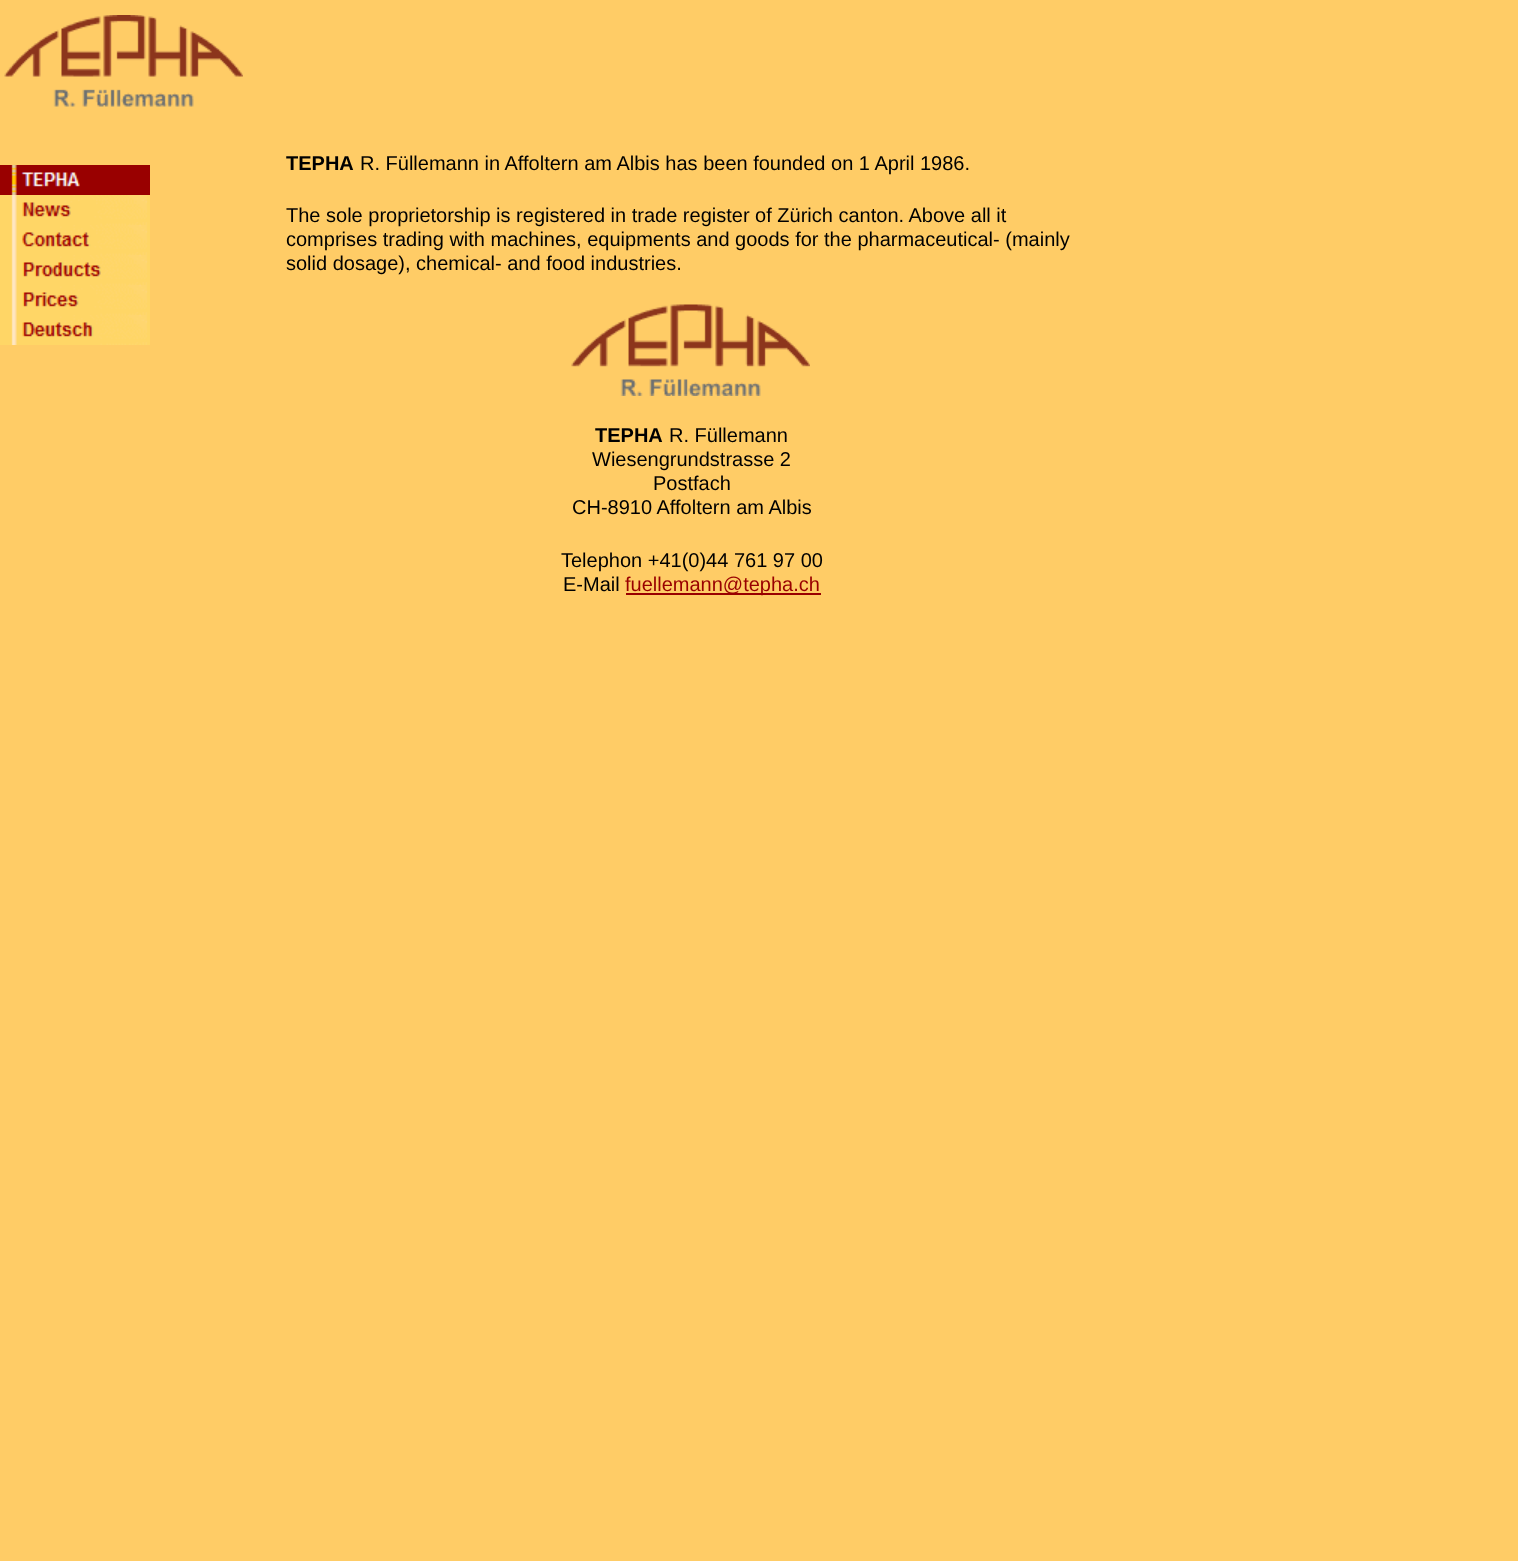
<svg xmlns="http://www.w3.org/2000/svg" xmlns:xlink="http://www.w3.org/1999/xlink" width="1518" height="1561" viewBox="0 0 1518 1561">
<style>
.cls-1{font:bold 20px Liberation Sans;fill:#000000}
.cls-2{font:20px Liberation Sans;fill:#000000}
.cls-3{font:20px Liberation Sans;fill:#990000}
</style>
<rect width="100%" height="100%" fill="#ffcc66"/>
<image xlink:href="image0.png" x="4" y="15" width="239" height="92"/>
<image xlink:href="image1.png" x="0" y="165" width="150" height="30"/>
<image xlink:href="image2.png" x="0" y="195" width="150" height="30"/>
<image xlink:href="image3.png" x="0" y="225" width="150" height="30"/>
<image xlink:href="image4.png" x="0" y="255" width="150" height="30"/>
<image xlink:href="image5.png" x="0" y="285" width="150" height="30"/>
<image xlink:href="image6.png" x="0" y="315" width="150" height="30"/>
<image xlink:href="image7.png" x="571" y="304" width="239" height="92"/>
<rect fill="#990000" x="626" y="593" width="195" height="2"/>
<text class="cls-1" x="286" y="170">TEPHA</text>
<text class="cls-2" x="360" y="170">R. Füllemann in Affoltern am Albis has been founded on 1 April 1986.</text>
<text class="cls-2"><tspan x="286" y="222">The sole proprietorship is registered in trade register of Zürich canton. Above all it</tspan><tspan x="286" y="246">comprises trading with machines, equipments and goods for the pharmaceutical- (mainly</tspan><tspan x="286" y="270">solid dosage), chemical- and food industries.</tspan></text>
<text class="cls-1" x="595" y="442">TEPHA</text>
<text class="cls-2" x="669" y="442">R. Füllemann</text>
<text class="cls-2" x="592" y="466">Wiesengrundstrasse 2</text>
<text class="cls-2" x="653" y="490">Postfach</text>
<text class="cls-2" x="572" y="514">CH-8910 Affoltern am Albis</text>
<text class="cls-2" x="561" y="567">Telephon +41(0)44 761 97 00</text>
<text class="cls-2" x="563" y="591">E-Mail</text>
<text class="cls-3" x="625" y="591">fuellemann@tepha.ch</text>
</svg>
